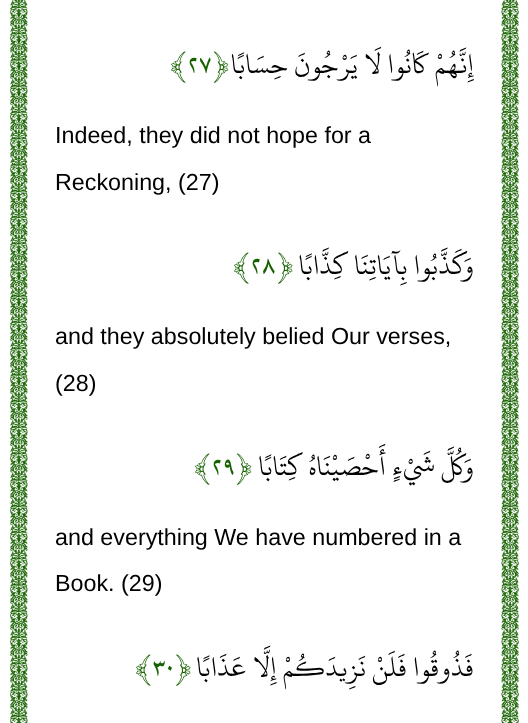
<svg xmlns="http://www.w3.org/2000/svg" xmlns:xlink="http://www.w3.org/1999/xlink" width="528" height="723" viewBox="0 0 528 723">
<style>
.cls-1{font:30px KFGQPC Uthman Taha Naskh;direction:rtl;fill:#000000}
.cls-2{font:30px KFGQPC Uthman Taha Naskh;fill:#176200}
.cls-3{font:23.3px Liberation Sans;fill:#000000}
</style>
<rect width="100%" height="100%" fill="#ffffff"/>
<image xlink:href="image0.png" x="501" y="0" width="18" height="723"/>
<image xlink:href="image1.png" x="10" y="0" width="18" height="723"/>
<text class="cls-1" x="474" y="73">إِنَّهُمْ كَانُوا لَا يَرْجُونَ حِسَابًا</text>
<text class="cls-2" x="170" y="73">﴾۲۷﴿</text>
<text class="cls-3" x="55" y="143">Indeed, they did not hope for a</text>
<text class="cls-3" x="55" y="190">Reckoning, (27)</text>
<text class="cls-1" x="474" y="274">وَكَذَّبُوا بِآيَاتِنَا كِذَّابًا</text>
<text class="cls-2" x="233" y="274">﴾۲۸﴿</text>
<text class="cls-3" x="55" y="344">and they absolutely belied Our verses,</text>
<text class="cls-3" x="55" y="391">(28)</text>
<text class="cls-1" x="474" y="475">وَكُلَّ شَيْءٍ أَحْصَيْنَاهُ كِتَابًا</text>
<text class="cls-2" x="194" y="475">﴾۲۹﴿</text>
<text class="cls-3"><tspan x="55" y="545">and everything We have numbered in a</tspan><tspan x="55" y="591">Book. (29)</tspan></text>
<text class="cls-1" x="474" y="676">فَذُوقُوا فَلَنْ نَزِيدَكُمْ إِلَّا عَذَابًا</text>
<text class="cls-2" x="135" y="676">﴾۳۰﴿</text>
</svg>
